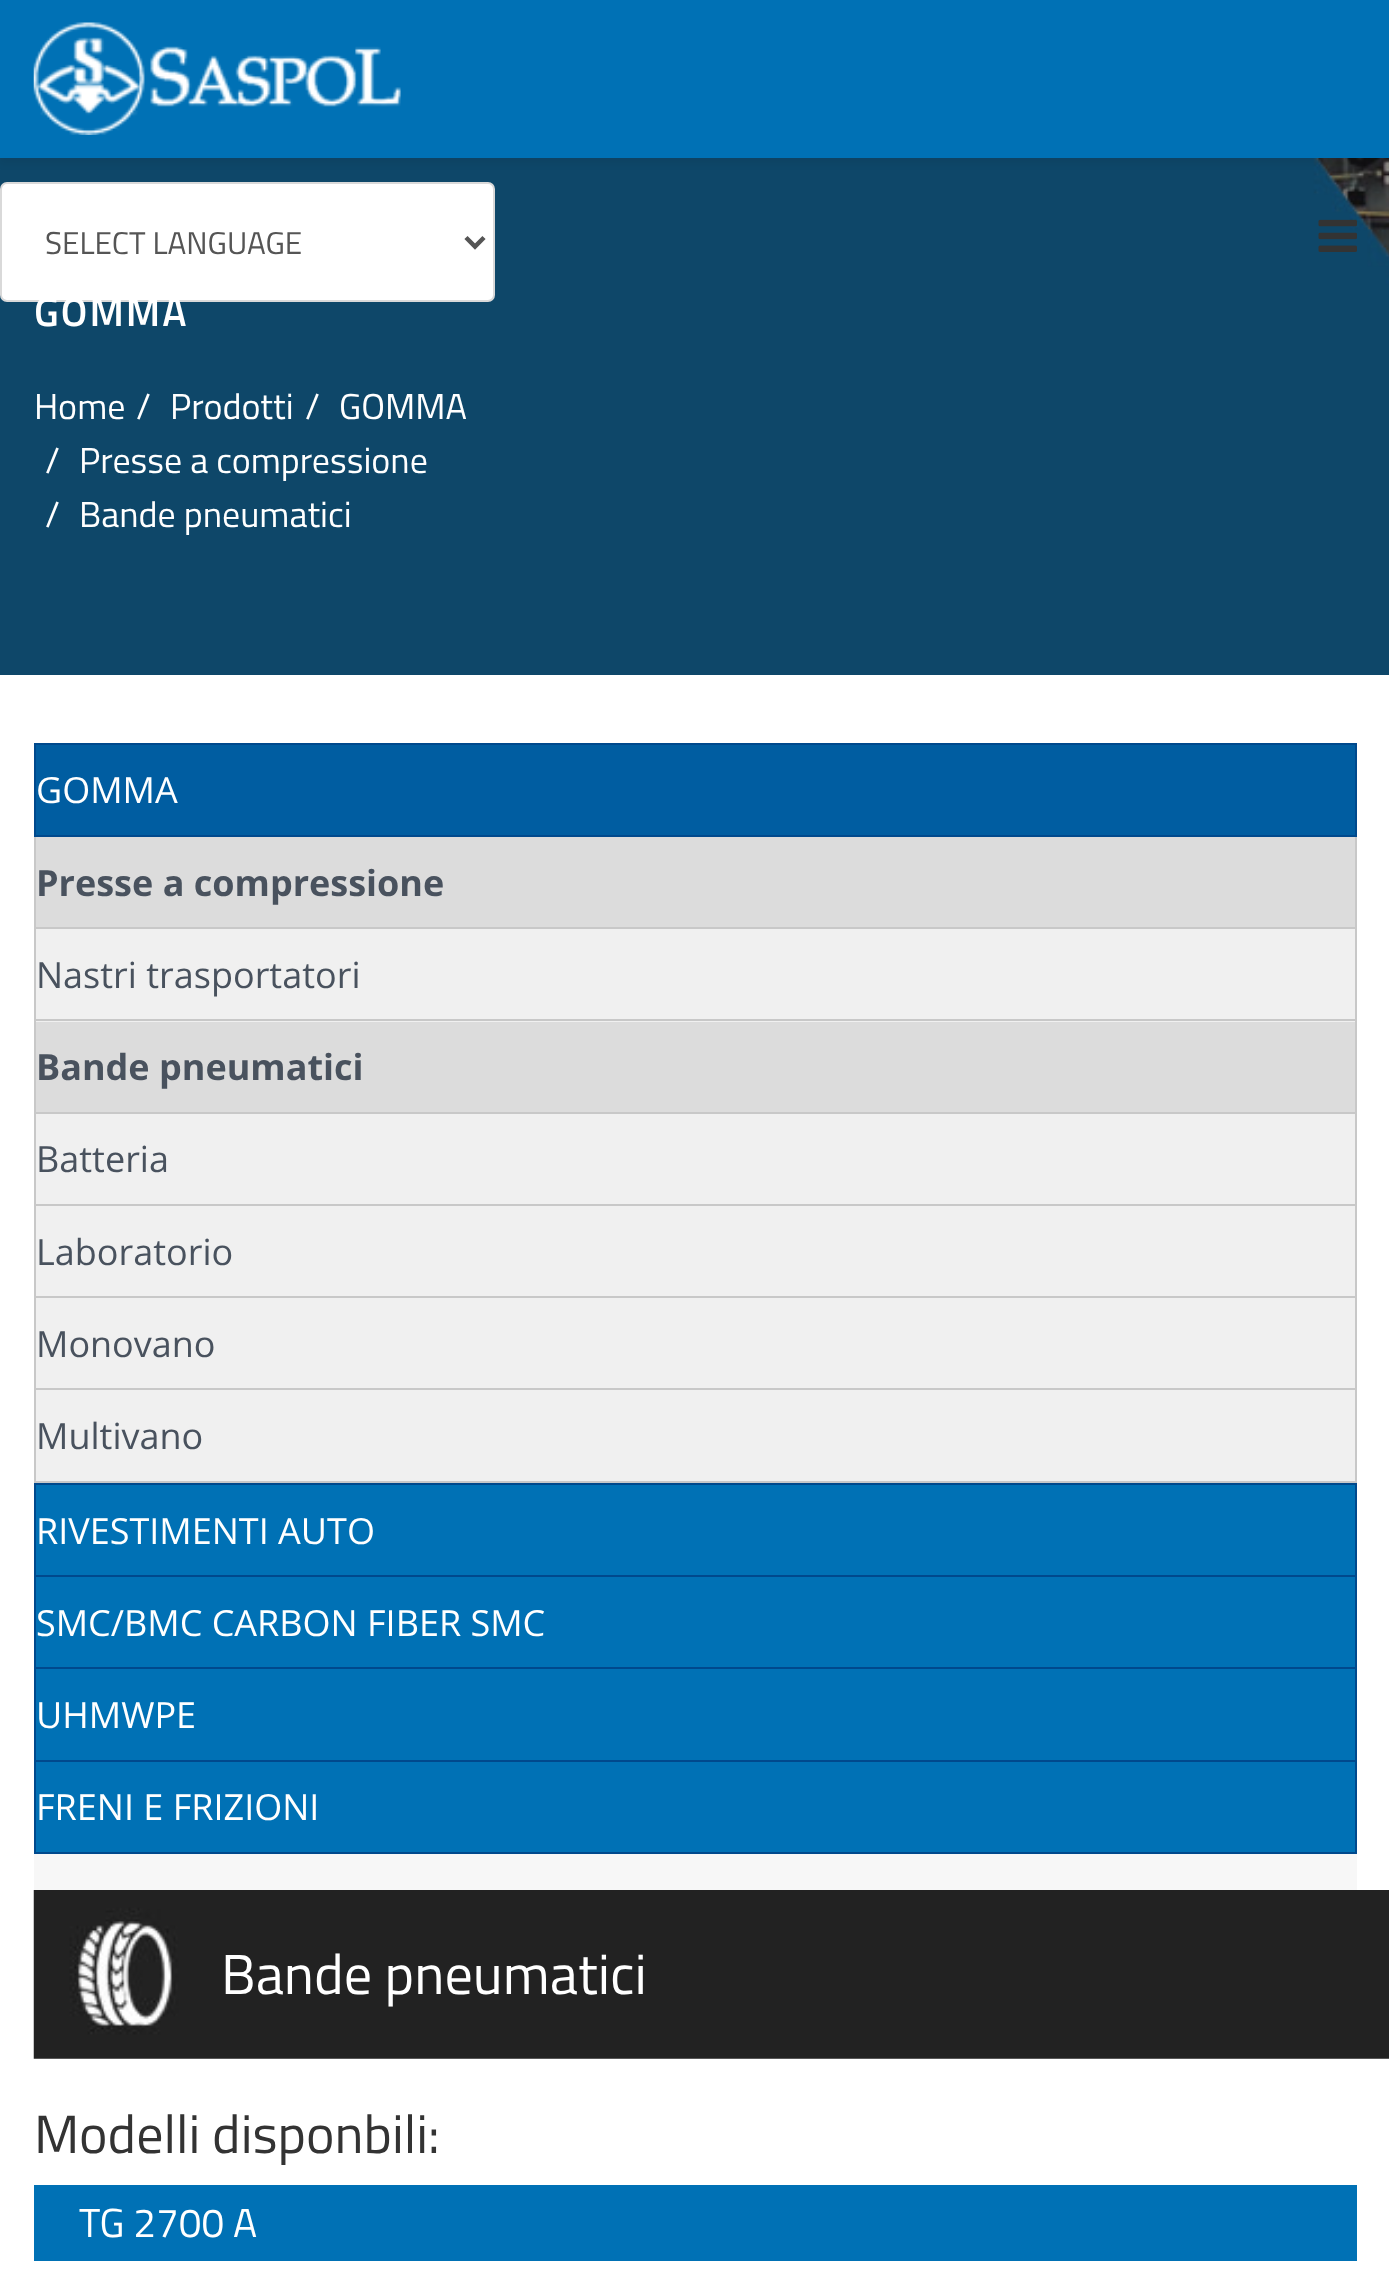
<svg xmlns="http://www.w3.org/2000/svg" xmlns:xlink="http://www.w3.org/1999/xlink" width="1389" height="2285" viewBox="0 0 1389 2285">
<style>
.cls-1{font:31.5px Titillium Web;fill:#555555}
.cls-2{font:600 40.5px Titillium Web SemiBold;letter-spacing:2px;fill:#ffffff}
.cls-3{font:36px Titillium Web;fill:#ffffff}
.cls-4{font:36px Open Sans;fill:#ffffff}
.cls-5{font:bold 36px Open Sans;fill:#49525e}
.cls-6{font:36px Open Sans;fill:#49525e}
.cls-7{font:56.25px Titillium Web;fill:#ffffff}
.cls-8{font:54px Titillium Web;fill:#333333}
.cls-9{font:40.5px Titillium Web;fill:#ffffff}
</style>
<rect width="100%" height="100%" fill="#ffffff"/>
<image xlink:href="image2.png" x="0" y="158" width="1389" height="517"/>
<rect fill="#000000" fill-opacity="0.05" filter="blur(3.5px)" x="0" y="7" width="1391" height="157"/>
<rect fill="#0071b5" x="0" y="0" width="1389" height="158"/>
<image xlink:href="image0.png" x="33" y="22" width="368" height="113"/>
<rect fill="#ffffff" stroke="#d9d9d9" stroke-width="2" x="1" y="183" width="493" height="118" rx="6"/>
<path fill="none" stroke="#555555" stroke-width="4.5" d="M466 237.5L475 246.5L484 237.5"/>
<image xlink:href="image1.png" x="1318" y="219" width="39" height="33"/>
<rect fill="#f7f7f7" x="34" y="1854" width="1323" height="36"/>
<rect fill="#005da1" stroke="#00498d" stroke-width="2" x="35" y="744" width="1321" height="92"/>
<rect fill="#dcdcdc" x="36" y="837" width="1319" height="90"/>
<rect fill="#c8c8c8" x="1355" y="837" width="2" height="646"/>
<rect fill="#c8c8c8" x="34" y="927" width="1323" height="2"/>
<rect fill="#c8c8c8" x="34" y="837" width="2" height="92"/>
<rect fill="#f0f0f0" x="36" y="929" width="1319" height="93"/>
<rect fill="#c8c8c8" x="34" y="1019" width="1323" height="2"/>
<rect fill="#c8c8c8" x="34" y="929" width="2" height="93"/>
<rect fill="#dcdcdc" x="36" y="1022" width="1319" height="90"/>
<rect fill="#c8c8c8" x="34" y="1112" width="1323" height="2"/>
<rect fill="#c8c8c8" x="34" y="1022" width="2" height="92"/>
<rect fill="#f0f0f0" x="36" y="1114" width="1319" height="90"/>
<rect fill="#c8c8c8" x="34" y="1204" width="1323" height="2"/>
<rect fill="#c8c8c8" x="34" y="1114" width="2" height="92"/>
<rect fill="#f0f0f0" x="36" y="1206" width="1319" height="90"/>
<rect fill="#c8c8c8" x="34" y="1296" width="1323" height="2"/>
<rect fill="#c8c8c8" x="34" y="1206" width="2" height="92"/>
<rect fill="#f0f0f0" x="36" y="1298" width="1319" height="183"/>
<rect fill="#c8c8c8" x="34" y="1388" width="1323" height="2"/>
<rect fill="#c8c8c8" x="34" y="1298" width="2" height="93"/>
<rect fill="#c8c8c8" x="34" y="1481" width="1323" height="2"/>
<rect fill="#c8c8c8" x="34" y="1391" width="2" height="92"/>
<rect fill="#0071b5" x="36" y="1485" width="1319" height="90"/>
<rect fill="#00498d" x="34" y="1483" width="1323" height="2"/>
<rect fill="#00498d" x="1355" y="1483" width="2" height="92"/>
<rect fill="#00498d" x="34" y="1483" width="2" height="92"/>
<rect fill="#0071b5" x="36" y="1577" width="1319" height="90"/>
<rect fill="#00498d" x="34" y="1575" width="1323" height="2"/>
<rect fill="#00498d" x="1355" y="1575" width="2" height="92"/>
<rect fill="#00498d" x="34" y="1575" width="2" height="92"/>
<rect fill="#0071b5" x="36" y="1669" width="1319" height="91"/>
<rect fill="#00498d" x="34" y="1667" width="1323" height="2"/>
<rect fill="#00498d" x="1355" y="1667" width="2" height="93"/>
<rect fill="#00498d" x="34" y="1667" width="2" height="93"/>
<rect fill="#0071b5" stroke="#00498d" stroke-width="2" x="35" y="1761" width="1321" height="92"/>
<image xlink:href="image3.png" x="33" y="1890" width="1356" height="169"/>
<rect fill="#0071b5" x="34" y="2185" width="1323" height="76"/>
<text class="cls-1" x="45" y="254">SELECT LANGUAGE</text>
<text class="cls-2" x="34" y="326">GOMMA</text>
<text class="cls-3" x="34" y="419">Home</text>
<text class="cls-3" x="136" y="419">/</text>
<text class="cls-3" x="170" y="419">Prodotti</text>
<text class="cls-3" x="305" y="419">/</text>
<text class="cls-3" x="339" y="419">GOMMA</text>
<text class="cls-3" x="45" y="473">/</text>
<text class="cls-3" x="79" y="473">Presse a compressione</text>
<text class="cls-3" x="45" y="527">/</text>
<text class="cls-3" x="79" y="527">Bande pneumatici</text>
<text class="cls-4" x="36" y="803">GOMMA</text>
<text class="cls-5" x="36" y="896">Presse a compressione</text>
<text class="cls-6" x="36" y="988">Nastri trasportatori</text>
<text class="cls-5" x="36" y="1080">Bande pneumatici</text>
<text class="cls-6" x="36" y="1172">Batteria</text>
<text class="cls-6" x="36" y="1265">Laboratorio</text>
<text class="cls-6" x="36" y="1357">Monovano</text>
<text class="cls-6" x="36" y="1449">Multivano</text>
<text class="cls-4" x="36" y="1544">RIVESTIMENTI AUTO</text>
<text class="cls-4" x="36" y="1636">SMC/BMC CARBON FIBER SMC</text>
<text class="cls-4" x="36" y="1728">UHMWPE</text>
<text class="cls-4" x="36" y="1820">FRENI E FRIZIONI</text>
<text class="cls-7" x="221" y="1994">Bande pneumatici</text>
<text class="cls-8" x="34" y="2153">Modelli disponbili:</text>
<text class="cls-9" x="79" y="2237">TG 2700 A</text>
</svg>
